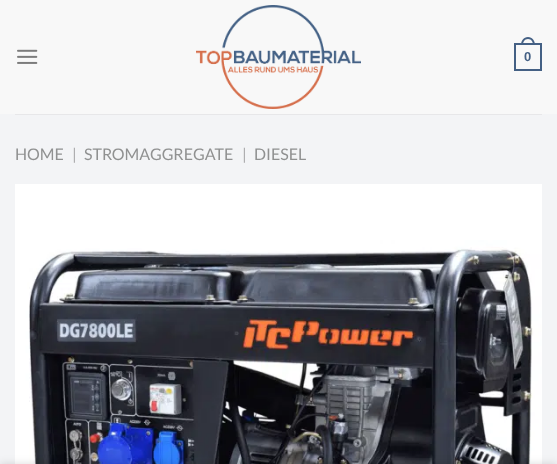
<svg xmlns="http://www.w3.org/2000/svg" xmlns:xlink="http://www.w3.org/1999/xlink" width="557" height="464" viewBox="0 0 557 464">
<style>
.cls-1{font:bold 13px Liberation Sans;fill:#446084}
.cls-2{font:16px Lato;fill:#909191}
.cls-3{font:16px Lato;fill:#aaaaac}
</style>
<rect width="100%" height="100%" fill="#f3f4f6"/>
<rect fill="#f8f8f8" x="0" y="0" width="557" height="114"/>
<image xlink:href="image0.png" x="17" y="49" width="21" height="15"/>
<image xlink:href="image1.png" x="196" y="5" width="165" height="104"/>
<rect fill="none" stroke="#446084" stroke-width="2" x="515" y="44" width="26" height="26"/>
<path fill="#446084" fill-rule="evenodd" d="M528 37C532.5 37 535 41 535 45H521C521 41 523.5 37 528 37ZM528 39C531.5 39 533 42 533 45H523C523 42 524.5 39 528 39Z"/>
<rect fill="#e7e7e9" x="15" y="114" width="527" height="1"/>
<image xlink:href="image2.png" x="15" y="184" width="527" height="280"/>
<rect fill="#000000" fill-opacity="0.14" filter="blur(4.5px)" x="0" y="464" width="557" height="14"/>
<text class="cls-1" x="524" y="61">0</text>
<text class="cls-2" x="15" y="160">HOME</text>
<text class="cls-3" x="72" y="160">|</text>
<text class="cls-2" x="84" y="160">STROMAGGREGATE</text>
<text class="cls-3" x="242" y="160">|</text>
<text class="cls-2" x="254" y="160">DIESEL</text>
</svg>
